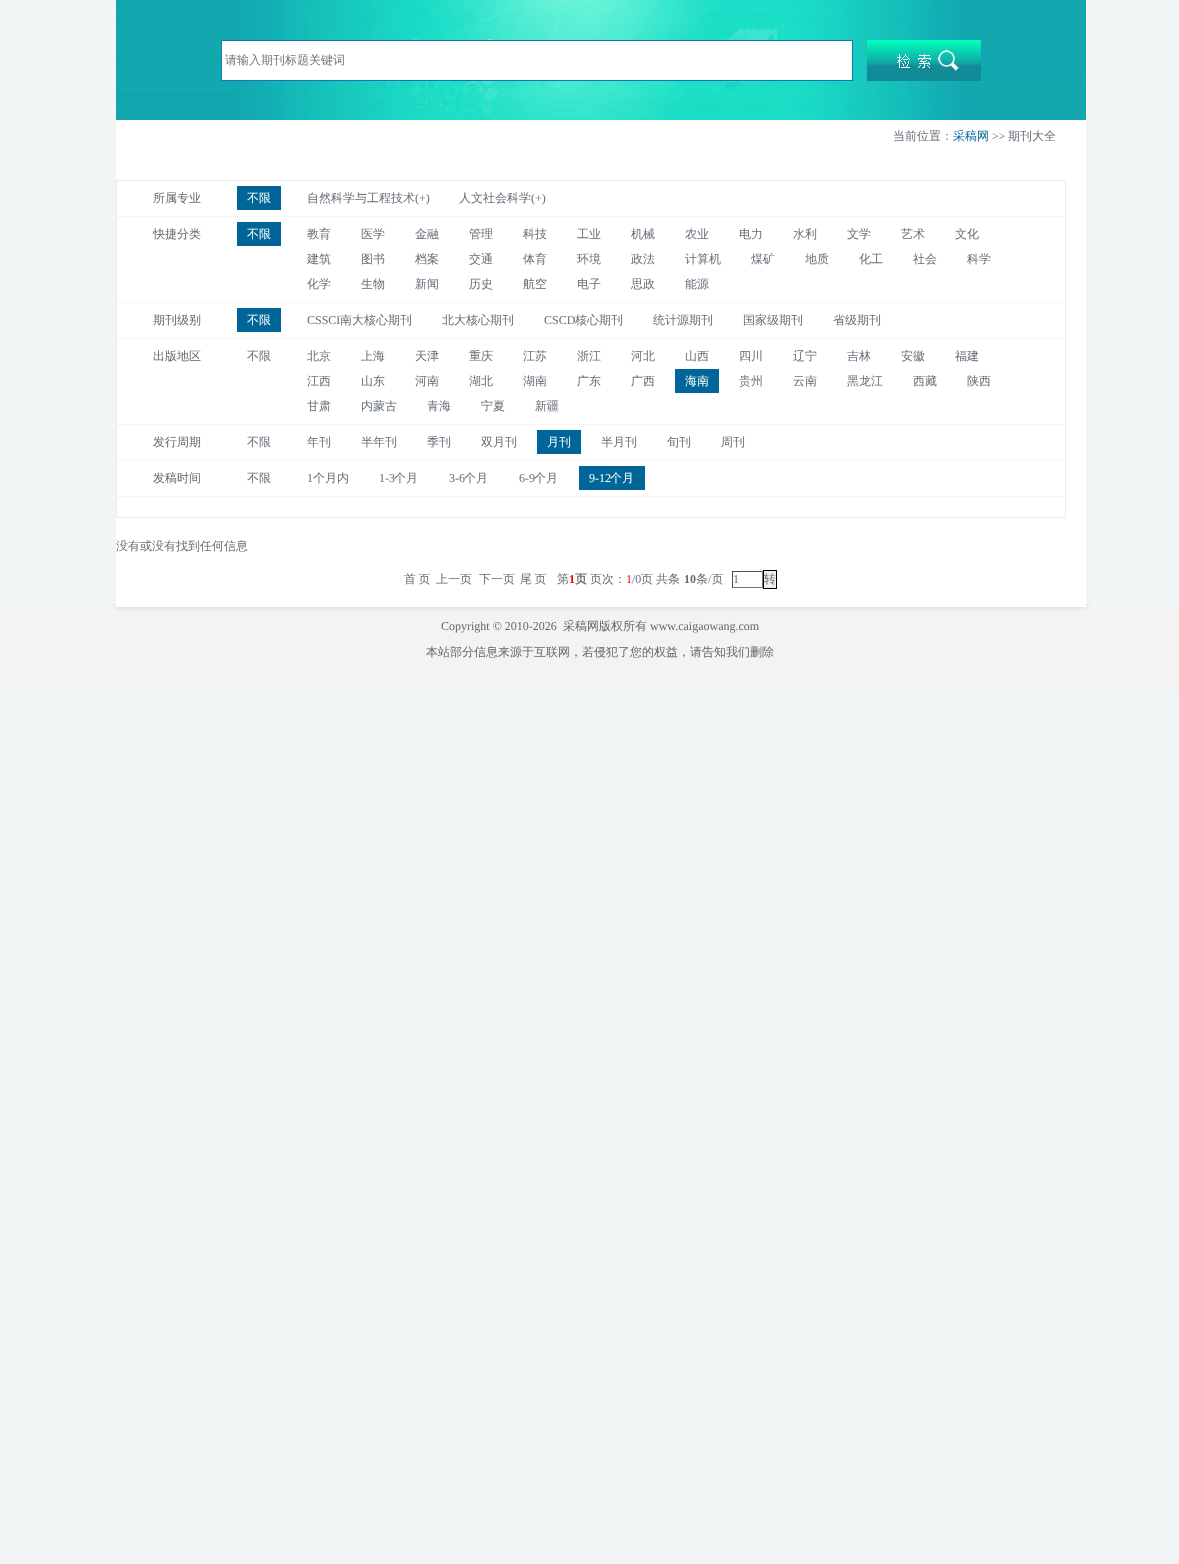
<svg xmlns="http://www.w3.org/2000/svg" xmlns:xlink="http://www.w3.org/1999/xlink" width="1179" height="1564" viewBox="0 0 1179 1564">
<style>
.cls-1{font:500 12px WenQuanYi Zen Hei;fill:#757575}
.cls-2{font:500 12px WenQuanYi Zen Hei;fill:#656d77}
.cls-3{font:500 12px WenQuanYi Zen Hei;fill:#006699}
.cls-4{font:12px Liberation Serif;fill:#656d77}
.cls-5{font:500 12px WenQuanYi Zen Hei;fill:#666666}
.cls-6{font:500 12px WenQuanYi Zen Hei;fill:#ffffff}
.cls-7{font:12px Liberation Serif;fill:#ffffff}
.cls-8{font:bold 12px Liberation Serif;fill:#ff0000}
.cls-9{font:bold 12px WenQuanYi Zen Hei;fill:#656d77}
.cls-10{font:12px Liberation Serif;fill:#ff0000}
.cls-11{font:bold 12px Liberation Serif;fill:#656d77}
.cls-12{font:12px Liberation Serif;fill:#666666}
</style>
<rect width="100%" height="100%" fill="#f1f5f6"/>
<rect fill="#ffffff" x="116" y="120" width="970" height="484"/>
<image xlink:href="image0.png" x="116" y="0" width="970" height="120"/>
<rect fill="#ffffff" stroke="#127ab1" x="221.5" y="40.5" width="631" height="40"/>
<image xlink:href="image1.png" x="867" y="40" width="114" height="41"/>
<rect fill="none" stroke="#ececec" x="116.5" y="180.5" width="949" height="337"/>
<path fill="none" stroke="#ececec" stroke-dasharray="1 1" d="M117 216.5H1065"/>
<rect fill="#006699" x="237" y="186" width="44" height="24"/>
<path fill="none" stroke="#ececec" stroke-dasharray="1 1" d="M117 302.5H1065"/>
<rect fill="#006699" x="237" y="222" width="44" height="24"/>
<path fill="none" stroke="#ececec" stroke-dasharray="1 1" d="M117 338.5H1065"/>
<rect fill="#006699" x="237" y="308" width="44" height="24"/>
<path fill="none" stroke="#ececec" stroke-dasharray="1 1" d="M117 424.5H1065"/>
<rect fill="#006699" x="675" y="369" width="44" height="24"/>
<path fill="none" stroke="#ececec" stroke-dasharray="1 1" d="M117 460.5H1065"/>
<rect fill="#006699" x="537" y="430" width="44" height="24"/>
<path fill="none" stroke="#ececec" stroke-dasharray="1 1" d="M117 496.5H1065"/>
<rect fill="#006699" x="579" y="466" width="66" height="24"/>
<rect fill="#efefef" stroke="#000000" x="763.5" y="570.5" width="13" height="18"/>
<rect fill="#4f4f4f" x="732" y="571" width="31" height="1"/>
<rect fill="#767676" x="762" y="571" width="1" height="17"/>
<rect fill="#767676" x="732" y="587" width="31" height="1"/>
<rect fill="#4f4f4f" x="732" y="571" width="1" height="17"/>
<image xlink:href="image2.png" x="117" y="604" width="968" height="7"/>
<image xlink:href="image3.png" x="110" y="604" width="7" height="7"/>
<image xlink:href="image4.png" x="1085" y="604" width="6" height="7"/>
<rect fill="#f3f3f3" x="0" y="613" width="1179" height="78"/>
<text class="cls-1" x="225" y="64">请输入期刊标题关键词</text>
<text class="cls-2" x="893" y="140">当前位置：</text>
<text class="cls-3" x="953" y="140">采稿网</text>
<text class="cls-4" x="992" y="140">&gt;&gt;</text>
<text class="cls-2" x="1008" y="140">期刊大全</text>
<text class="cls-5" x="153" y="202">所属专业</text>
<text class="cls-6" x="247" y="202">不限</text>
<text class="cls-2" x="307" y="202">自然科学与工程技术</text>
<text class="cls-4" x="415" y="202">(+)</text>
<text class="cls-2" x="459" y="202">人文社会科学</text>
<text class="cls-4" x="531" y="202">(+)</text>
<text class="cls-5" x="153" y="238">快捷分类</text>
<text class="cls-6" x="247" y="238">不限</text>
<text class="cls-2" x="307" y="238">教育</text>
<text class="cls-2" x="361" y="238">医学</text>
<text class="cls-2" x="415" y="238">金融</text>
<text class="cls-2" x="469" y="238">管理</text>
<text class="cls-2" x="523" y="238">科技</text>
<text class="cls-2" x="577" y="238">工业</text>
<text class="cls-2" x="631" y="238">机械</text>
<text class="cls-2" x="685" y="238">农业</text>
<text class="cls-2" x="739" y="238">电力</text>
<text class="cls-2" x="793" y="238">水利</text>
<text class="cls-2" x="847" y="238">文学</text>
<text class="cls-2" x="901" y="238">艺术</text>
<text class="cls-2" x="955" y="238">文化</text>
<text class="cls-2" x="307" y="263">建筑</text>
<text class="cls-2" x="361" y="263">图书</text>
<text class="cls-2" x="415" y="263">档案</text>
<text class="cls-2" x="469" y="263">交通</text>
<text class="cls-2" x="523" y="263">体育</text>
<text class="cls-2" x="577" y="263">环境</text>
<text class="cls-2" x="631" y="263">政法</text>
<text class="cls-2" x="685" y="263">计算机</text>
<text class="cls-2" x="751" y="263">煤矿</text>
<text class="cls-2" x="805" y="263">地质</text>
<text class="cls-2" x="859" y="263">化工</text>
<text class="cls-2" x="913" y="263">社会</text>
<text class="cls-2" x="967" y="263">科学</text>
<text class="cls-2" x="307" y="288">化学</text>
<text class="cls-2" x="361" y="288">生物</text>
<text class="cls-2" x="415" y="288">新闻</text>
<text class="cls-2" x="469" y="288">历史</text>
<text class="cls-2" x="523" y="288">航空</text>
<text class="cls-2" x="577" y="288">电子</text>
<text class="cls-2" x="631" y="288">思政</text>
<text class="cls-2" x="685" y="288">能源</text>
<text class="cls-5" x="153" y="324">期刊级别</text>
<text class="cls-6" x="247" y="324">不限</text>
<text class="cls-4" x="307" y="324">CSSCI</text>
<text class="cls-2" x="340" y="324">南大核心期刊</text>
<text class="cls-2" x="442" y="324">北大核心期刊</text>
<text class="cls-4" x="544" y="324">CSCD</text>
<text class="cls-2" x="575" y="324">核心期刊</text>
<text class="cls-2" x="653" y="324">统计源期刊</text>
<text class="cls-2" x="743" y="324">国家级期刊</text>
<text class="cls-2" x="833" y="324">省级期刊</text>
<text class="cls-5" x="153" y="360">出版地区</text>
<text class="cls-2" x="247" y="360">不限</text>
<text class="cls-2" x="307" y="360">北京</text>
<text class="cls-2" x="361" y="360">上海</text>
<text class="cls-2" x="415" y="360">天津</text>
<text class="cls-2" x="469" y="360">重庆</text>
<text class="cls-2" x="523" y="360">江苏</text>
<text class="cls-2" x="577" y="360">浙江</text>
<text class="cls-2" x="631" y="360">河北</text>
<text class="cls-2" x="685" y="360">山西</text>
<text class="cls-2" x="739" y="360">四川</text>
<text class="cls-2" x="793" y="360">辽宁</text>
<text class="cls-2" x="847" y="360">吉林</text>
<text class="cls-2" x="901" y="360">安徽</text>
<text class="cls-2" x="955" y="360">福建</text>
<text class="cls-2" x="307" y="385">江西</text>
<text class="cls-2" x="361" y="385">山东</text>
<text class="cls-2" x="415" y="385">河南</text>
<text class="cls-2" x="469" y="385">湖北</text>
<text class="cls-2" x="523" y="385">湖南</text>
<text class="cls-2" x="577" y="385">广东</text>
<text class="cls-2" x="631" y="385">广西</text>
<text class="cls-6" x="685" y="385">海南</text>
<text class="cls-2" x="739" y="385">贵州</text>
<text class="cls-2" x="793" y="385">云南</text>
<text class="cls-2" x="847" y="385">黑龙江</text>
<text class="cls-2" x="913" y="385">西藏</text>
<text class="cls-2" x="967" y="385">陕西</text>
<text class="cls-2" x="307" y="410">甘肃</text>
<text class="cls-2" x="361" y="410">内蒙古</text>
<text class="cls-2" x="427" y="410">青海</text>
<text class="cls-2" x="481" y="410">宁夏</text>
<text class="cls-2" x="535" y="410">新疆</text>
<text class="cls-5" x="153" y="446">发行周期</text>
<text class="cls-2" x="247" y="446">不限</text>
<text class="cls-2" x="307" y="446">年刊</text>
<text class="cls-2" x="361" y="446">半年刊</text>
<text class="cls-2" x="427" y="446">季刊</text>
<text class="cls-2" x="481" y="446">双月刊</text>
<text class="cls-6" x="547" y="446">月刊</text>
<text class="cls-2" x="601" y="446">半月刊</text>
<text class="cls-2" x="667" y="446">旬刊</text>
<text class="cls-2" x="721" y="446">周刊</text>
<text class="cls-5" x="153" y="482">发稿时间</text>
<text class="cls-2" x="247" y="482">不限</text>
<text class="cls-4" x="307" y="482">1</text>
<text class="cls-2" x="313" y="482">个月内</text>
<text class="cls-4" x="379" y="482">1-3</text>
<text class="cls-2" x="394" y="482">个月</text>
<text class="cls-4" x="449" y="482">3-6</text>
<text class="cls-2" x="464" y="482">个月</text>
<text class="cls-4" x="519" y="482">6-9</text>
<text class="cls-2" x="534" y="482">个月</text>
<text class="cls-7" x="589" y="482">9-12</text>
<text class="cls-6" x="610" y="482">个月</text>
<text class="cls-2" x="116" y="550">没有或没有找到任何信息</text>
<text class="cls-2" x="404" y="583" word-spacing="-1">首 页</text>
<text class="cls-2" x="436" y="583">上一页</text>
<text class="cls-2" x="479" y="583">下一页</text>
<text class="cls-2" x="520" y="583" word-spacing="-1">尾 页</text>
<text class="cls-2" x="557" y="583">第</text>
<text class="cls-8" x="569" y="583">1</text>
<text class="cls-9" x="575" y="583">页</text>
<text class="cls-2" x="590" y="583">页次：</text>
<text class="cls-10" x="626" y="583">1</text>
<text class="cls-4" x="632" y="583">/0</text>
<text class="cls-2" x="641" y="583">页</text>
<text class="cls-2" x="656" y="583">共条</text>
<text class="cls-11" x="684" y="583">10</text>
<text class="cls-2" x="696" y="583">条 页</text>
<text class="cls-2" x="764" y="583">转</text>
<text class="cls-4" x="708" y="583">/</text>
<text class="cls-4" x="733" y="583">1</text>
<text class="cls-12" x="441" y="630">Copyright © 2010-2026</text>
<text class="cls-5" x="563" y="630">采稿网版权所有</text>
<text class="cls-12" x="650" y="630">www.caigaowang.com</text>
<text class="cls-5" x="426" y="656">本站部分信息来源于互联网，若侵犯了您的权益，请告知我们删除</text>
</svg>
